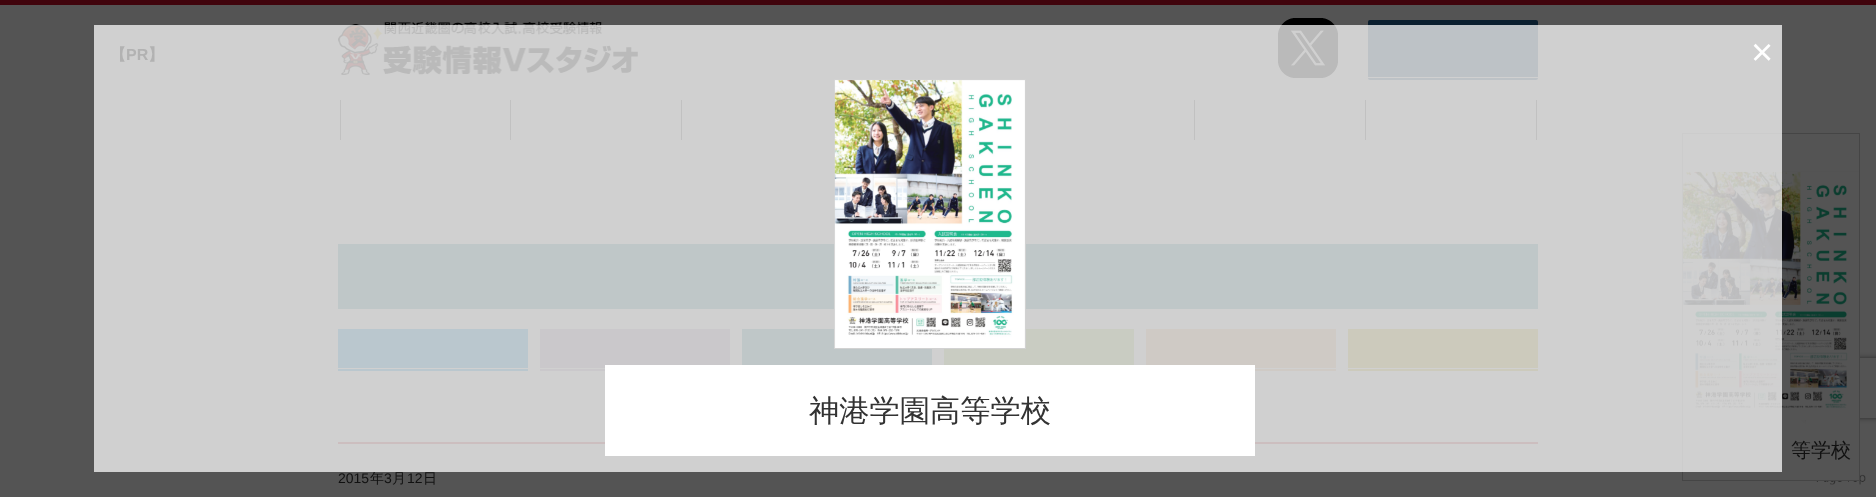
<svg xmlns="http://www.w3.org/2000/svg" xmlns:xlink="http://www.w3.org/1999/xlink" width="1876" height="497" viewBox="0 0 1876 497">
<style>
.cls-1{font:500 20px WenQuanYi Zen Hei;fill:#111111}
.cls-2{font:14px Liberation Sans;fill:#111111}
.cls-3{font:500 14px WenQuanYi Zen Hei;fill:#111111}
.cls-4{font:38px Liberation Sans;fill:#ffffff}
.cls-5{font:500 30.25px WenQuanYi Zen Hei;fill:#333333}
.cls-6{font:bold 16px WenQuanYi Zen Hei;fill:#b2b2b2}
.cls-7{font:bold 16px Liberation Sans;fill:#b2b2b2}
</style>
<defs>
<clipPath id="clip1"><path d="M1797 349H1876V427H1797ZM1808 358H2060C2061 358 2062 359 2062 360V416C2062 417 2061 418 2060 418H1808C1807 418 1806 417 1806 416V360C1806 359 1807 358 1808 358Z" clip-rule="evenodd"/></clipPath>
</defs>
<rect width="100%" height="100%" fill="#545454"/>
<rect fill="#40040c" x="0" y="0" width="1876" height="5"/>
<g clip-path="url(#clip1)">
<rect fill="#2a2a2a" filter="blur(2.5px)" x="1806" y="358" width="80" height="60" rx="2"/>
</g>
<rect fill="#545454" fill-opacity="0.73" x="1803" y="355" width="56" height="65"/>
<image xlink:href="image4.png" x="1816" y="474" width="50" height="11"/>
<rect fill="none" stroke="#454545" x="1682.5" y="133.5" width="177" height="347"/>
<image xlink:href="image1.png" x="1683" y="171" width="176" height="249"/>
<rect fill="#545454" x="1806" y="420" width="53" height="60"/>
<image xlink:href="image2.png" x="338" y="21" width="300" height="54"/>
<image xlink:href="image3.png" x="1278" y="18" width="60" height="60"/>
<rect fill="#0b1f2f" x="1368" y="20" width="170" height="60" rx="2"/>
<rect fill="#545454" x="1368" y="77" width="170" height="1"/>
<rect fill="#1d1d1d" x="510" y="100" width="1" height="40"/>
<rect fill="#1d1d1d" x="340" y="100" width="1" height="40"/>
<rect fill="#1d1d1d" x="681" y="100" width="1" height="40"/>
<rect fill="#1d1d1d" x="1194" y="100" width="1" height="40"/>
<rect fill="#1d1d1d" x="1365" y="100" width="1" height="40"/>
<rect fill="#1d1d1d" x="1536" y="100" width="1" height="40"/>
<rect fill="#143336" x="338" y="244" width="1200" height="65"/>
<rect fill="#00334a" x="338" y="329" width="190" height="42"/>
<rect fill="#545454" x="338" y="368" width="190" height="1"/>
<rect fill="#3d343f" x="540" y="329" width="190" height="42"/>
<rect fill="#545454" x="540" y="368" width="65" height="1"/>
<rect fill="#143336" x="742" y="329" width="190" height="36"/>
<rect fill="#384220" x="944" y="329" width="190" height="36"/>
<rect fill="#4f3b29" x="1146" y="329" width="190" height="42"/>
<rect fill="#545454" x="1255" y="368" width="81" height="1"/>
<rect fill="#423e09" x="1348" y="329" width="190" height="42"/>
<rect fill="#545454" x="1348" y="368" width="190" height="1"/>
<rect fill="#421014" x="338" y="442" width="1200" height="2"/>
<text class="cls-1" x="1791" y="457">等学校</text>
<text class="cls-2" x="338" y="483">2015</text>
<text class="cls-3" x="370" y="483">年</text>
<rect fill="#ffffff" fill-opacity="0.73" x="94" y="25" width="1688" height="447"/>
<text class="cls-4" x="1751" y="65">×</text>
<rect fill="none" stroke="#d2d2d2" x="834.5" y="79.5" width="191" height="269"/>
<image xlink:href="image0.png" x="834" y="80" width="191" height="268"/>
<rect fill="#ffffff" x="605" y="365" width="650" height="91"/>
<text class="cls-5" x="809" y="421">神港学園高等学校</text>
<text class="cls-6" x="148" y="60">】</text>
<text class="cls-7" x="126" y="60">PR</text>
<text class="cls-6" x="110" y="60">【</text>
<text class="cls-2" x="384" y="483">3</text>
<text class="cls-3" x="392" y="483">月</text>
<text class="cls-2" x="407" y="483">12</text>
<text class="cls-3" x="423" y="483">日</text>
</svg>
